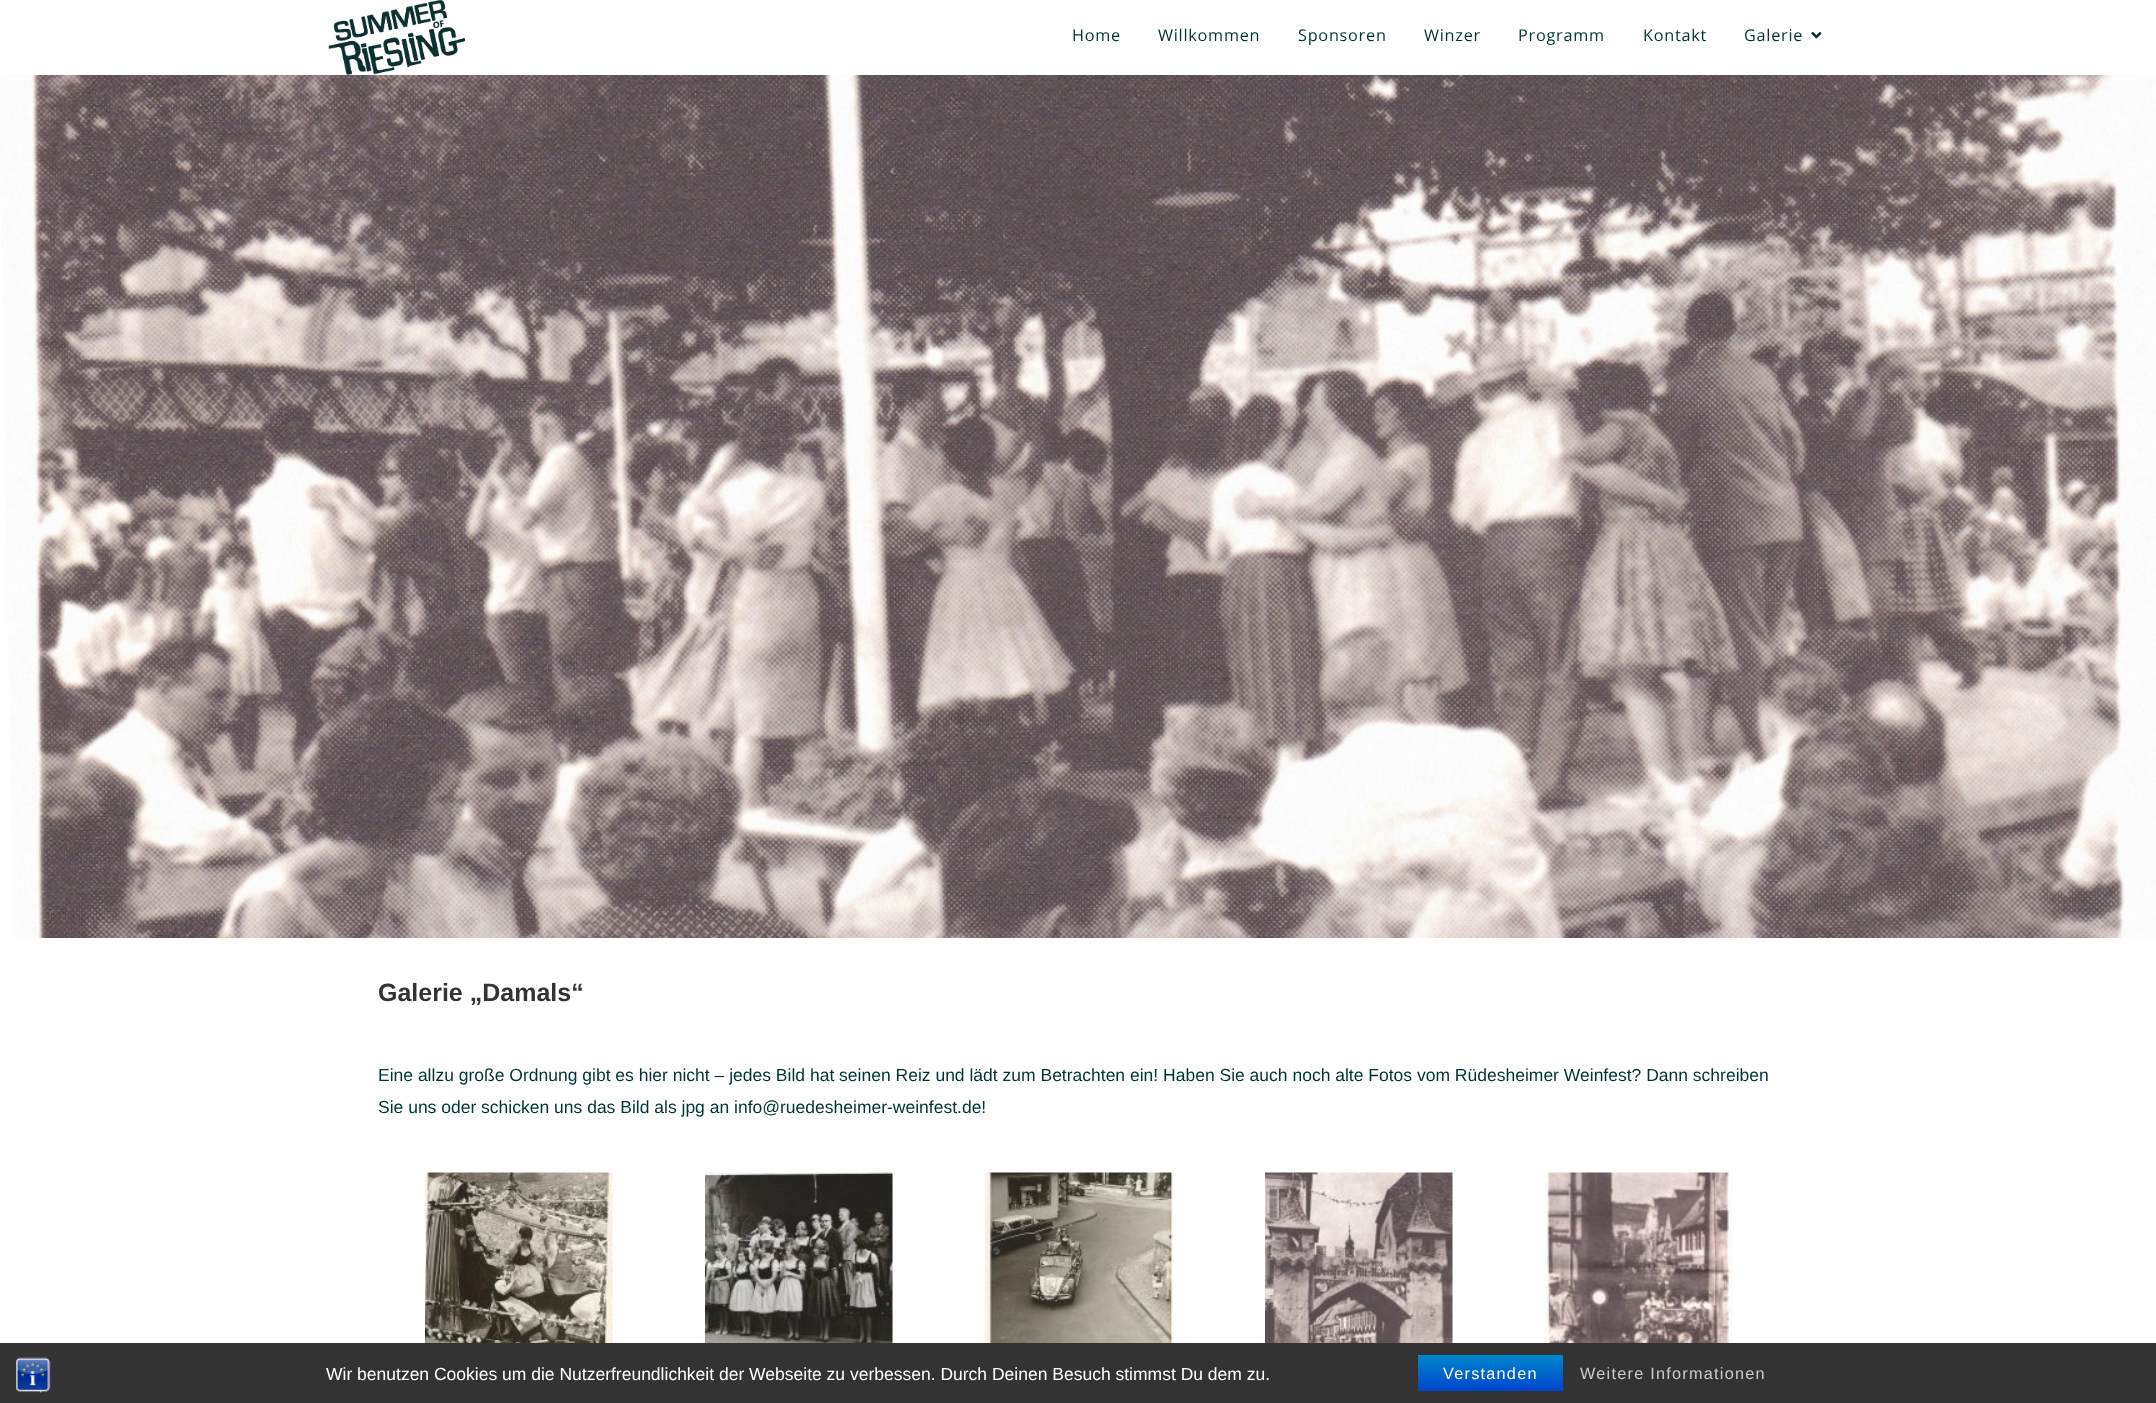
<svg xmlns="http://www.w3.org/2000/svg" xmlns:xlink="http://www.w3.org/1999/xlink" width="2156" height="1403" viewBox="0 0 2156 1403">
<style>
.cls-1{font:16.25px Open Sans;letter-spacing:0.75px;fill:#003333}
.cls-2{font:bold 25px Liberation Sans;fill:#333333}
.cls-3{font:17.5px Liberation Sans;fill:#003333}
.cls-4{font:17.5px Liberation Sans;fill:#ffffff}
.cls-5{font:16.25px Liberation Sans;letter-spacing:1.25px;fill:#ffffff}
.cls-6{font:16.25px Liberation Sans;letter-spacing:1.25px;fill:#cccccc}
</style>
<defs>
<linearGradient id="g1" gradientUnits="userSpaceOnUse" x1="1490" y1="1355" x2="1490" y2="1391"><stop offset="0" stop-color="#0088cc"/><stop offset="1" stop-color="#0044cc"/></linearGradient>
</defs>
<rect width="100%" height="100%" fill="#ffffff"/>
<image xlink:href="image0.png" x="328" y="0" width="137" height="75"/>
<image xlink:href="image1.png" x="1811" y="31" width="11" height="8"/>
<image xlink:href="image2.png" x="0" y="75" width="2156" height="863"/>
<image xlink:href="image3.png" x="425" y="1172" width="188" height="171"/>
<image xlink:href="image4.png" x="705" y="1172" width="188" height="171"/>
<image xlink:href="image5.png" x="985" y="1172" width="188" height="171"/>
<image xlink:href="image6.png" x="1265" y="1172" width="188" height="171"/>
<image xlink:href="image7.png" x="1545" y="1172" width="188" height="171"/>
<rect fill="#333333" x="0" y="1343" width="2156" height="60"/>
<image xlink:href="image8.png" x="16" y="1357" width="35" height="36"/>
<rect fill="url(#g1)" x="1418" y="1355" width="145" height="36"/>
<text class="cls-1" x="1072" y="41">Home</text>
<text class="cls-1" x="1158" y="41">Willkommen</text>
<text class="cls-1" x="1298" y="41">Sponsoren</text>
<text class="cls-1" x="1424" y="41">Winzer</text>
<text class="cls-1" x="1518" y="41">Programm</text>
<text class="cls-1" x="1643" y="41">Kontakt</text>
<text class="cls-1" x="1744" y="41">Galerie</text>
<text class="cls-2" x="378" y="1001">Galerie „Damals“</text>
<text class="cls-3"><tspan x="378" y="1081">Eine allzu große Ordnung gibt es hier nicht – jedes Bild hat seinen Reiz und lädt zum Betrachten ein! Haben Sie auch noch alte Fotos vom Rüdesheimer Weinfest? Dann schreiben</tspan><tspan x="378" y="1113">Sie uns oder schicken uns das Bild als jpg an info@ruedesheimer-weinfest.de!</tspan></text>
<text class="cls-4" x="326" y="1380">Wir benutzen Cookies um die Nutzerfreundlichkeit der Webseite zu verbessen. Durch Deinen Besuch stimmst Du dem zu.</text>
<text class="cls-5" x="1443" y="1379">Verstanden</text>
<text class="cls-6" x="1580" y="1379">Weitere Informationen</text>
</svg>
